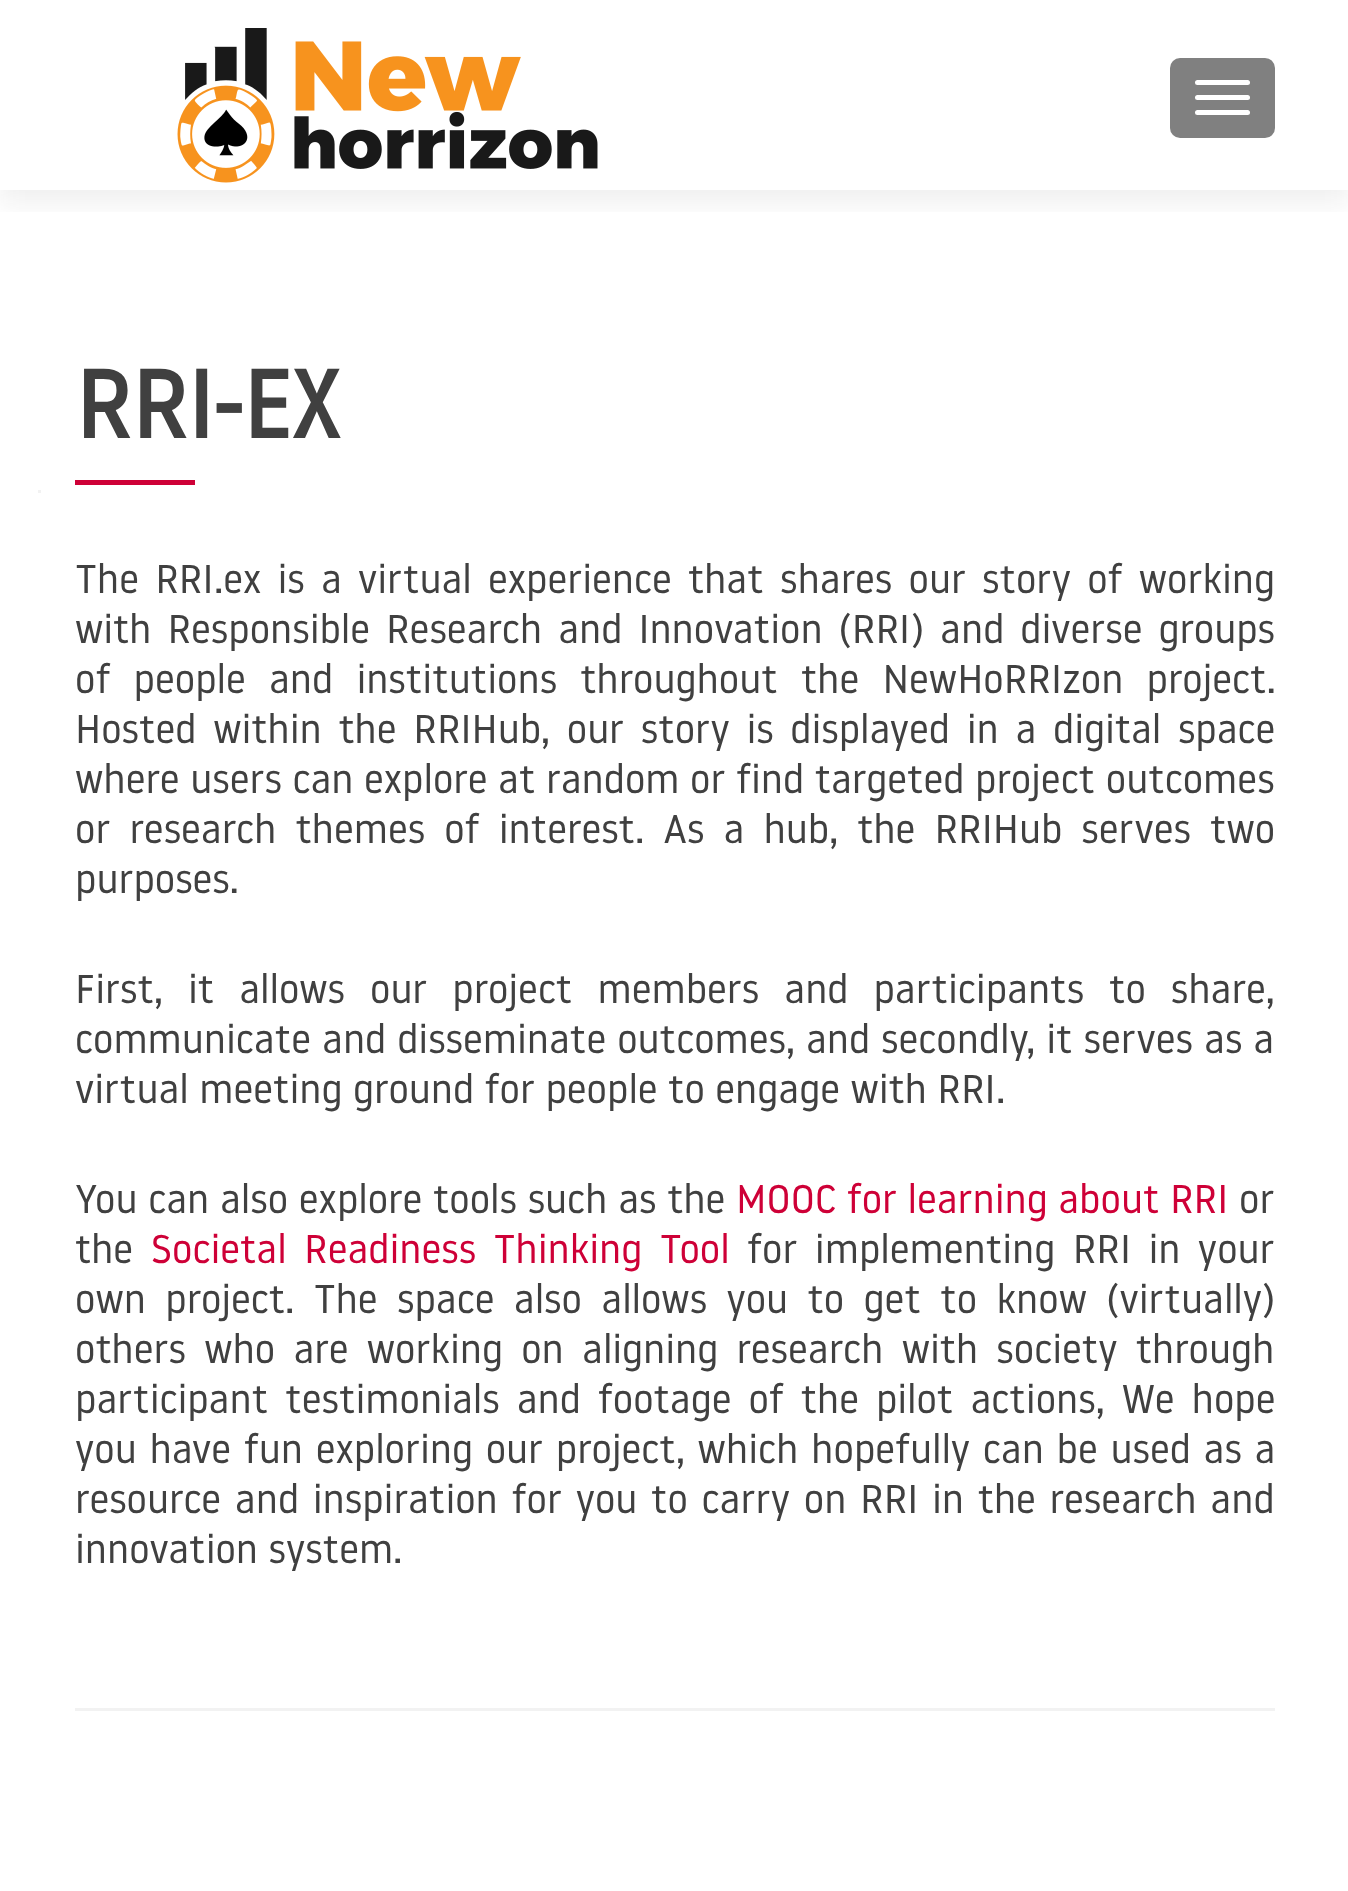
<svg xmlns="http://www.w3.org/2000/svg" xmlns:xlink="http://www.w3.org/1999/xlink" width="1348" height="1891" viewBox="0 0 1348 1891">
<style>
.cls-1{font:bold 95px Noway;fill:#404040}
.cls-2{font:40px Noway;fill:#404040}
.cls-3{font:40px Noway;fill:#ce0037}
</style>
<defs>
<clipPath id="clip1"><rect x="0" y="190" width="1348" height="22"/></clipPath>
</defs>
<rect width="100%" height="100%" fill="#ffffff"/>
<g clip-path="url(#clip1)">
<rect fill="#323232" fill-opacity="0.08" filter="blur(14px)" x="0" y="13" width="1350" height="190"/>
</g>
<image xlink:href="image0.png" x="177" y="28" width="421" height="155"/>
<rect fill="#808080" x="1170" y="58" width="105" height="80" rx="10"/>
<rect fill="#ffffff" x="1195" y="80" width="55" height="5" rx="2.5"/>
<rect fill="#ffffff" x="1195" y="95" width="55" height="5" rx="2.5"/>
<rect fill="#ffffff" x="1195" y="110" width="55" height="5" rx="2.5"/>
<rect fill="#f2f2f2" x="38" y="490" width="3" height="3"/>
<rect fill="#f2f2f2" x="75" y="1708" width="1200" height="3"/>
<rect fill="#ce0037" x="75" y="480" width="120" height="5"/>
<text class="cls-1" x="75" y="438">RRI-EX</text>
<text class="cls-2"><tspan x="75" y="593" word-spacing="5.75">The RRI.ex is a virtual experience that shares our story of working</tspan><tspan x="75" y="643" word-spacing="5.5">with Responsible Research and Innovation (RRI) and diverse groups</tspan><tspan x="75" y="693" word-spacing="12.75">of people and institutions throughout the NewHoRRIzon project.</tspan><tspan x="75" y="743" word-spacing="6.25">Hosted within the RRIHub, our story is displayed in a digital space</tspan><tspan x="75" y="793" word-spacing="0.1">where users can explore at random or find targeted project outcomes</tspan><tspan x="75" y="843" word-spacing="8.6">or research themes of interest. As a hub, the RRIHub serves two</tspan><tspan x="75" y="893">purposes.</tspan></text>
<text class="cls-2"><tspan x="75" y="1003" word-spacing="14.5">First, it allows our project members and participants to share,</tspan><tspan x="75" y="1053" word-spacing="0.5">communicate and disseminate outcomes, and secondly, it serves as a</tspan><tspan x="75" y="1103">virtual meeting ground for people to engage with RRI.</tspan></text>
<text class="cls-2" x="75" y="1213" word-spacing="0.25">You can also explore tools such as the</text>
<text class="cls-3" x="736" y="1213">MOOC for learning about RRI</text>
<text class="cls-2" x="1239" y="1213">or</text>
<text class="cls-2" x="75" y="1263">the</text>
<text class="cls-3" x="151" y="1263" word-spacing="7">Societal Readiness Thinking Tool</text>
<text class="cls-2" x="747" y="1263" word-spacing="7">for implementing RRI in your</text>
<text class="cls-2"><tspan x="75" y="1313" word-spacing="8.9">own project. The space also allows you to get to know (virtually)</tspan><tspan x="75" y="1363" word-spacing="7.75">others who are working on aligning research with society through</tspan><tspan x="75" y="1413" word-spacing="6.5">participant testimonials and footage of the pilot actions, We hope</tspan><tspan x="75" y="1463" word-spacing="2.25">you have fun exploring our project, which hopefully can be used as a</tspan><tspan x="75" y="1513" word-spacing="3.25">resource and inspiration for you to carry on RRI in the research and</tspan><tspan x="75" y="1563">innovation system.</tspan></text>
</svg>
